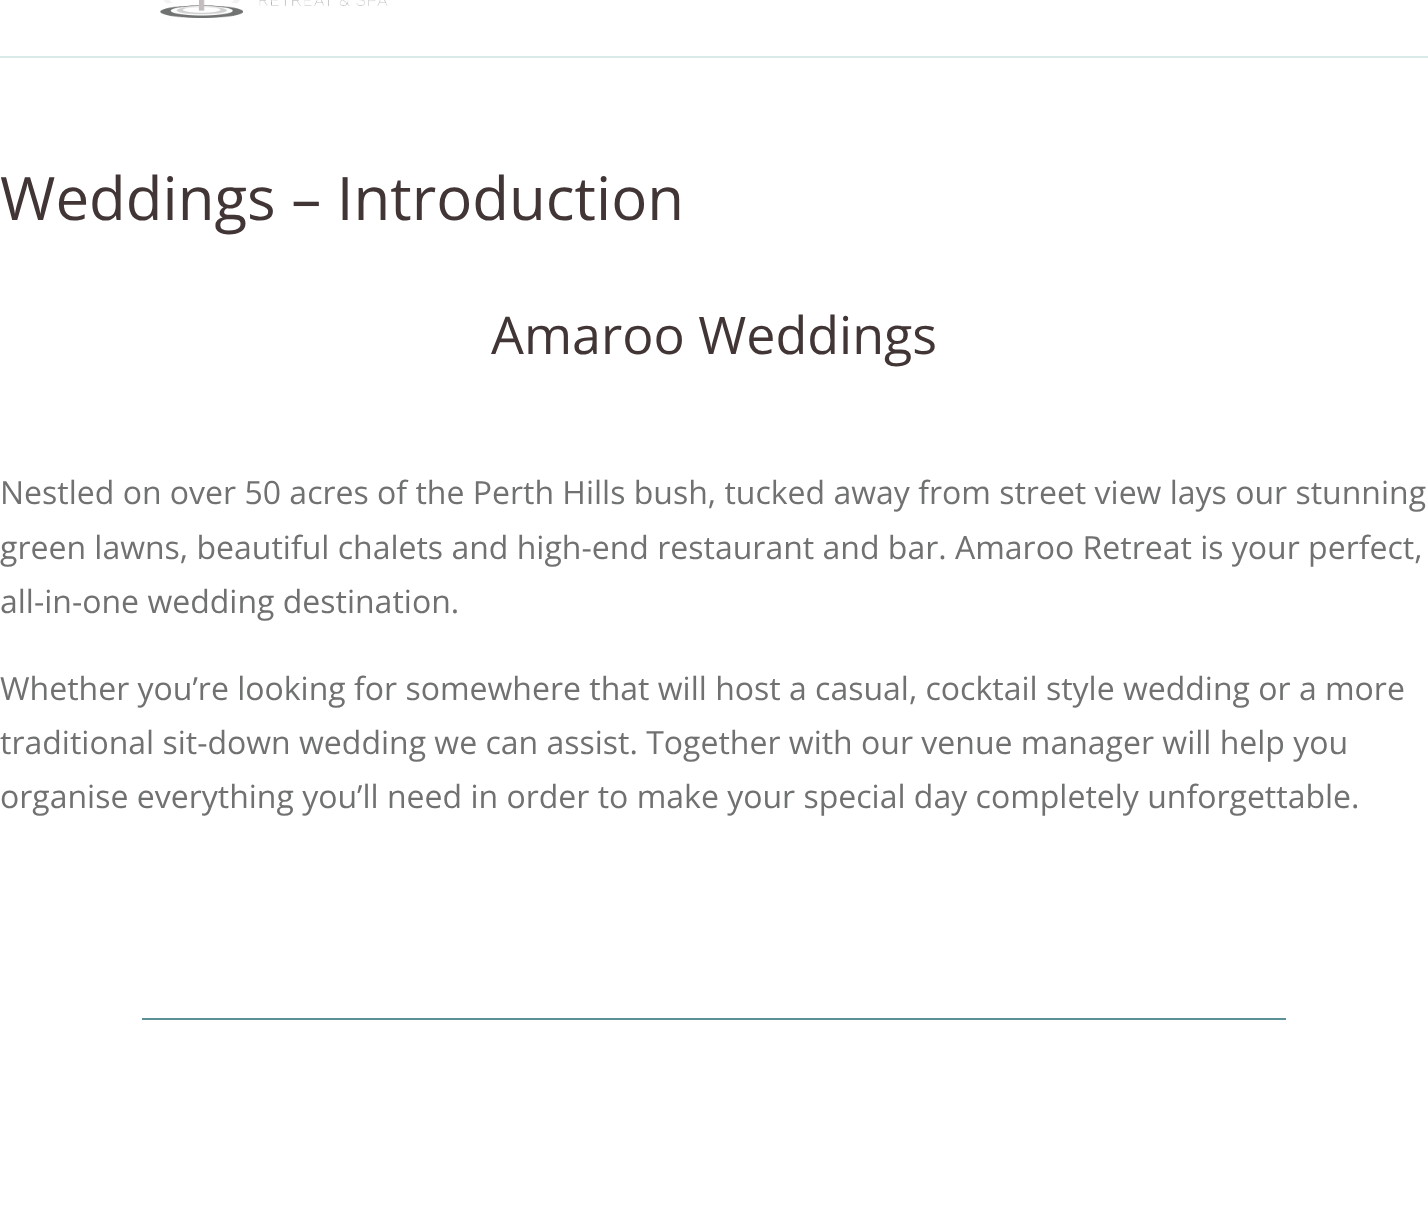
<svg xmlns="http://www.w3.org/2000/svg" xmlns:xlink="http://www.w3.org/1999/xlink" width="1428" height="1223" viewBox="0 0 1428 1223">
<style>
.cls-1{font:60px Open Sans;fill:#413535}
.cls-2{font:52px Open Sans;fill:#413535}
.cls-3{font:32px Open Sans;fill:#707271}
</style>
<rect width="100%" height="100%" fill="#ffffff"/>
<rect fill="#d9ebe8" x="0" y="56" width="1428" height="2"/>
<image xlink:href="image0.png" x="160" y="0" width="228" height="18"/>
<rect fill="#5c9097" x="142" y="1018" width="1144" height="2"/>
<text class="cls-1" x="0" y="220">Weddings – Introduction</text>
<text class="cls-2" x="491" y="354">Amaroo Weddings</text>
<text class="cls-3"><tspan x="0" y="504">Nestled on over 50 acres of the Perth Hills bush, tucked away from street view lays our stunning</tspan><tspan x="0" y="559">green lawns, beautiful chalets and high-end restaurant and bar. Amaroo Retreat is your perfect,</tspan><tspan x="0" y="613">all-in-one wedding destination.</tspan></text>
<text class="cls-3"><tspan x="0" y="700">Whether you’re looking for somewhere that will host a casual, cocktail style wedding or a more</tspan><tspan x="0" y="754">traditional sit-down wedding we can assist. Together with our venue manager will help you</tspan><tspan x="0" y="808">organise everything you’ll need in order to make your special day completely unforgettable.</tspan></text>
</svg>
